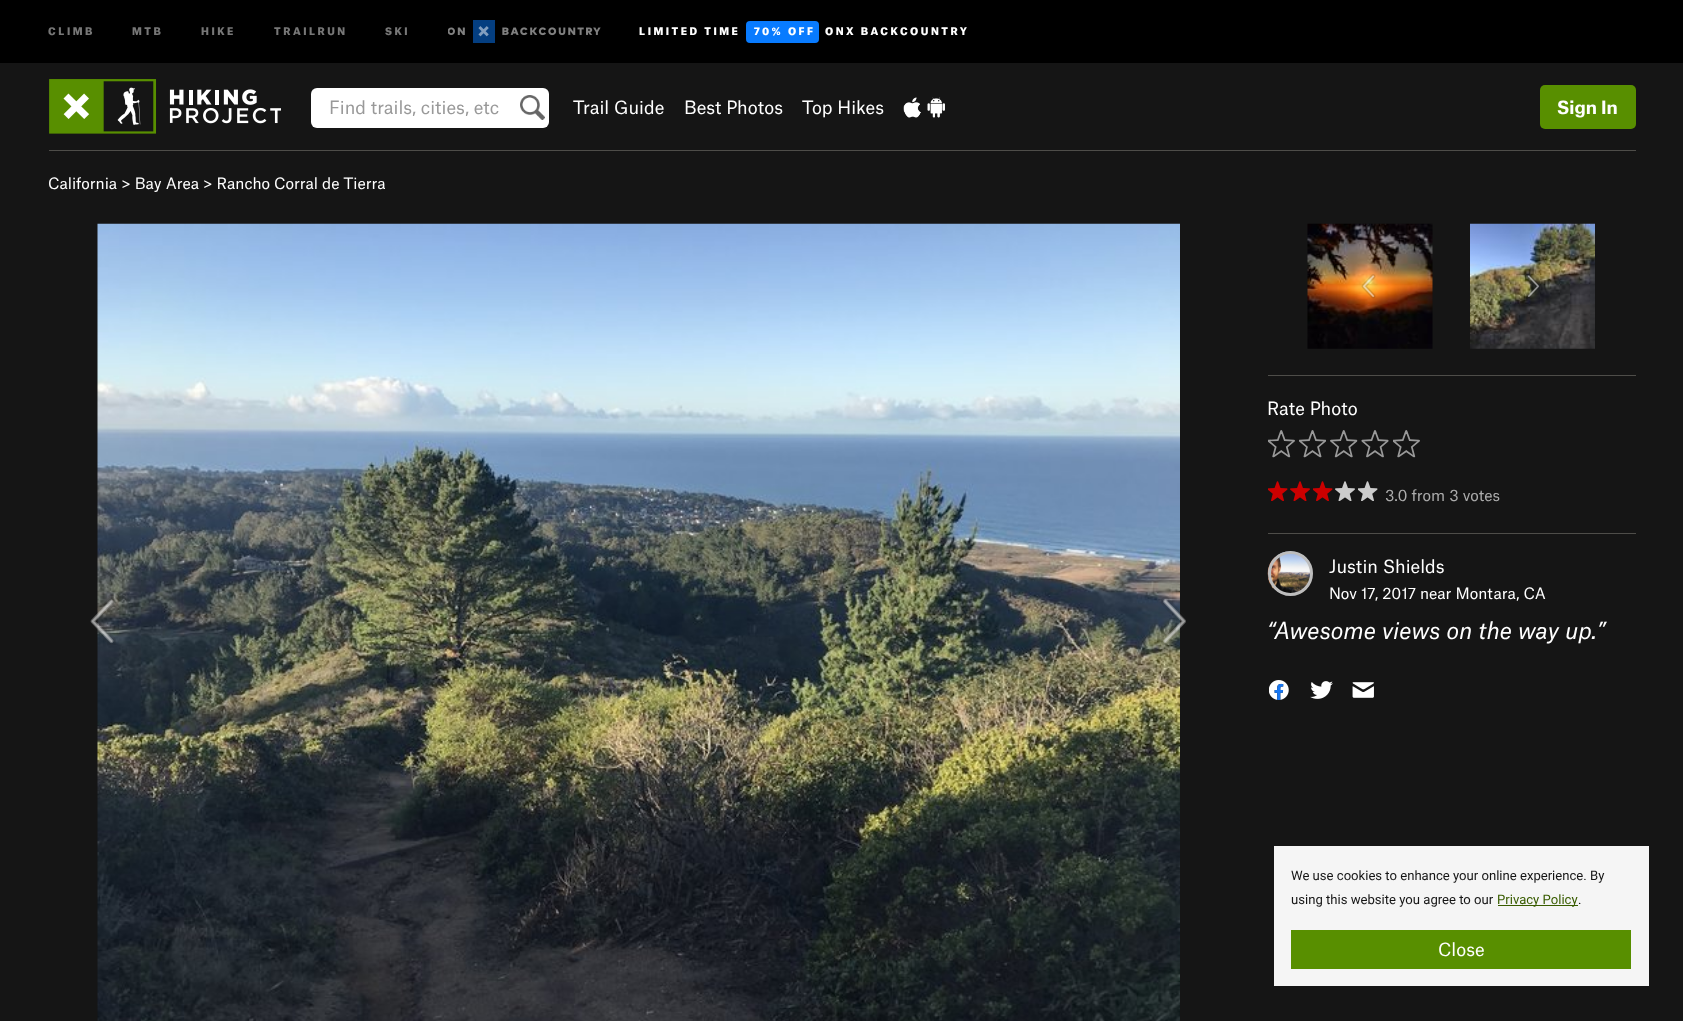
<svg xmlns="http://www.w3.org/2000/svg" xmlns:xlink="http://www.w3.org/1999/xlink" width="1683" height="1021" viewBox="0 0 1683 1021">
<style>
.cls-1{font:900 10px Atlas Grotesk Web;letter-spacing:2.5px;fill:#777777}
.cls-2{font:900 10px Atlas Grotesk Web;letter-spacing:2.5px;fill:#ffffff}
.cls-3{font:17.5px Atlas Grotesk Web;fill:#999999}
.cls-4{font:17.5px Atlas Grotesk Web;fill:#ffffff}
.cls-5{font:bold 17.5px Atlas Grotesk Web;fill:#ffffff}
.cls-6{font:15px Atlas Grotesk Web;fill:#ffffff}
.cls-7{font:15px Atlas Grotesk Web;fill:#acacac}
.cls-8{font:italic 22.5px Atlas Grotesk Web;fill:#ffffff}
.cls-9{font:13.1px Roboto;fill:#151515}
.cls-10{font:13.1px Roboto;fill:#395c00}
</style>
<rect width="100%" height="100%" fill="#151515"/>
<rect fill="#000000" x="0" y="0" width="1683" height="63"/>
<image xlink:href="image0.png" x="448" y="20" width="153" height="23"/>
<rect fill="#087bff" x="746" y="21" width="73" height="22" rx="4"/>
<image xlink:href="image1.png" x="49" y="79" width="232" height="55"/>
<rect fill="#ffffff" x="311" y="88" width="238" height="40" rx="6"/>
<image xlink:href="image2.png" x="520" y="95" width="25" height="25"/>
<image xlink:href="image3.png" x="903" y="97" width="18" height="21"/>
<image xlink:href="image4.png" x="927" y="97" width="18" height="21"/>
<rect fill="#588f00" x="1540" y="85" width="96" height="44" rx="5"/>
<rect fill="#4e4d49" x="49" y="150" width="1587" height="1"/>
<image xlink:href="image5.png" x="97" y="223" width="1083" height="798"/>
<image xlink:href="image6.png" x="90" y="597" width="26" height="48"/>
<image xlink:href="image7.png" x="1161" y="597" width="25" height="49"/>
<image xlink:href="image8.png" x="1307" y="223" width="126" height="126"/>
<image xlink:href="image9.png" x="1361" y="274" width="15" height="25"/>
<image xlink:href="image10.png" x="1470" y="223" width="125" height="126"/>
<image xlink:href="image11.png" x="1527" y="275" width="13" height="22"/>
<rect fill="#4e4d49" x="1268" y="375" width="368" height="1"/>
<image xlink:href="image12.png" x="1268" y="430" width="27" height="28"/>
<image xlink:href="image13.png" x="1299" y="430" width="27" height="28"/>
<image xlink:href="image14.png" x="1330" y="430" width="28" height="28"/>
<image xlink:href="image15.png" x="1361" y="430" width="28" height="28"/>
<image xlink:href="image16.png" x="1393" y="430" width="27" height="28"/>
<image xlink:href="image17.png" x="1268" y="481" width="20" height="20"/>
<image xlink:href="image18.png" x="1290" y="481" width="20" height="20"/>
<image xlink:href="image17.png" x="1313" y="481" width="20" height="20"/>
<image xlink:href="image19.png" x="1335" y="481" width="20" height="20"/>
<image xlink:href="image20.png" x="1358" y="481" width="20" height="20"/>
<rect fill="#4e4d49" x="1268" y="533" width="368" height="1"/>
<image xlink:href="image21.png" x="1267" y="551" width="46" height="45"/>
<circle fill="none" stroke="#bdbdbd" stroke-width="3" cx="1290.5" cy="573.5" r="21"/>
<image xlink:href="image22.png" x="1269" y="680" width="20" height="20"/>
<image xlink:href="image23.png" x="1310" y="681" width="23" height="18"/>
<image xlink:href="image24.png" x="1352" y="682" width="22" height="16"/>
<rect fill="#f5f5f5" x="1274" y="846" width="375" height="140"/>
<rect fill="#395c00" x="1498" y="905" width="80" height="1"/>
<rect fill="#588f00" x="1291" y="930" width="340" height="39"/>
<text class="cls-1" x="48" y="35">CLIMB</text>
<text class="cls-1" x="132" y="35">MTB</text>
<text class="cls-1" x="201" y="35">HIKE</text>
<text class="cls-1" x="274" y="35">TRAILRUN</text>
<text class="cls-1" x="385" y="35">SKI</text>
<text class="cls-2" x="639" y="35">LIMITED TIME</text>
<text class="cls-2" x="754" y="35">70% OFF</text>
<text class="cls-2" x="825" y="35">ONX BACKCOUNTRY</text>
<text class="cls-3" x="329" y="114">Find trails, cities, etc</text>
<text class="cls-4" x="573" y="114">Trail Guide</text>
<text class="cls-4" x="684" y="114">Best Photos</text>
<text class="cls-4" x="802" y="114">Top Hikes</text>
<text class="cls-5" x="1557" y="114">Sign In</text>
<text class="cls-6" x="48" y="189">California &gt; Bay Area &gt; Rancho Corral de Tierra</text>
<text class="cls-4" x="1267" y="415">Rate Photo</text>
<text class="cls-7" x="1385" y="501">3.0 from 3 votes</text>
<text class="cls-4" x="1329" y="573">Justin Shields</text>
<text class="cls-6" x="1329" y="599">Nov 17, 2017 near Montara, CA</text>
<text class="cls-8" x="1267" y="639">“</text>
<text class="cls-8" x="1274" y="639">Awesome views on the way up.”</text>
<text class="cls-9"><tspan x="1291" y="880">We use cookies to enhance your online experience. By</tspan><tspan x="1291" y="904">using this website you agree to our</tspan></text>
<text class="cls-10" x="1497" y="904">Privacy Policy</text>
<text class="cls-9" x="1578" y="904">.</text>
<text class="cls-4" x="1438" y="956">Close</text>
</svg>
